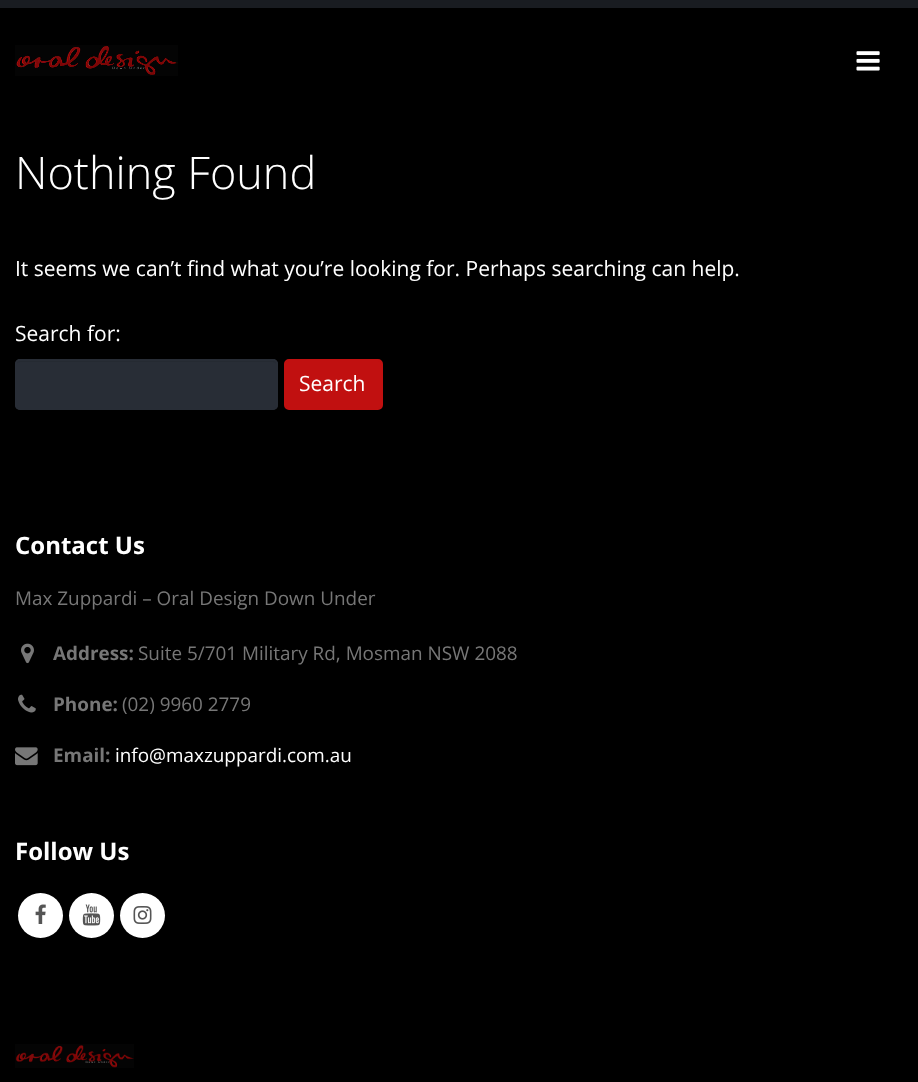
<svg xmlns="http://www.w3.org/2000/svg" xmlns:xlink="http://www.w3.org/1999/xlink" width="918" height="1082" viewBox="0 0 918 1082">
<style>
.cls-1{font:300 45px Open Sans;fill:#ffffff}
.cls-2{font:21px Open Sans;fill:#ffffff}
.cls-3{font:bold 24px Open Sans;fill:#ffffff}
.cls-4{font:18.9px Open Sans;fill:#777777}
.cls-5{font:bold 18.9px Open Sans;fill:#777777}
.cls-6{font:18.9px Open Sans;fill:#ffffff}
</style>
<rect width="100%" height="100%" fill="#000000"/>
<rect fill="#191c21" x="0" y="0" width="918" height="8"/>
<image xlink:href="image0.png" x="15" y="45" width="163" height="31"/>
<image xlink:href="image1.png" x="856" y="51" width="24" height="20"/>
<rect fill="#282d36" x="15" y="359" width="263" height="51" rx="5"/>
<path fill="#252a32" d="M20 362H273C275 362 276 363 276 364C276 362 275 360 273 360H20C18 360 17 361 17 363Z"/>
<rect fill="none" stroke="#282d36" stroke-width="2" x="16" y="360" width="261" height="49" rx="4"/>
<rect fill="#c11010" stroke="#c11010" stroke-width="2" x="285" y="360" width="97" height="49" rx="4"/>
<image xlink:href="image2.png" x="21" y="643" width="13" height="21"/>
<image xlink:href="image3.png" x="18" y="694" width="18" height="19"/>
<image xlink:href="image4.png" x="15" y="747" width="23" height="19"/>
<circle fill="#ffffff" cx="40.5" cy="915.5" r="22.5"/>
<image xlink:href="image5.png" x="35" y="904" width="11" height="20"/>
<circle fill="#ffffff" cx="91.5" cy="915.5" r="22.5"/>
<image xlink:href="image6.png" x="82" y="904" width="19" height="22"/>
<circle fill="#ffffff" cx="142.5" cy="915.5" r="22.5"/>
<image xlink:href="image7.png" x="133" y="906" width="19" height="18"/>
<image xlink:href="image8.png" x="15" y="1044" width="119" height="24"/>
<text class="cls-1" x="15" y="189">Nothing Found</text>
<text class="cls-2" x="15" y="276">It seems we can’t find what you’re looking for. Perhaps searching can help.</text>
<text class="cls-2" x="15" y="341">Search for:</text>
<text class="cls-2" x="299" y="391">Search</text>
<text class="cls-3" x="15" y="554">Contact Us</text>
<text class="cls-4" x="15" y="605">Max Zuppardi – Oral Design Down Under</text>
<text class="cls-5" x="53" y="660">Address:</text>
<text class="cls-4" x="138" y="660">Suite 5/701 Military Rd, Mosman NSW 2088</text>
<text class="cls-5" x="53" y="711">Phone:</text>
<text class="cls-4" x="122" y="711">(02) 9960 2779</text>
<text class="cls-5" x="53" y="762">Email:</text>
<text class="cls-6" x="115" y="762">info@maxzuppardi.com.au</text>
<text class="cls-3" x="15" y="860">Follow Us</text>
</svg>
